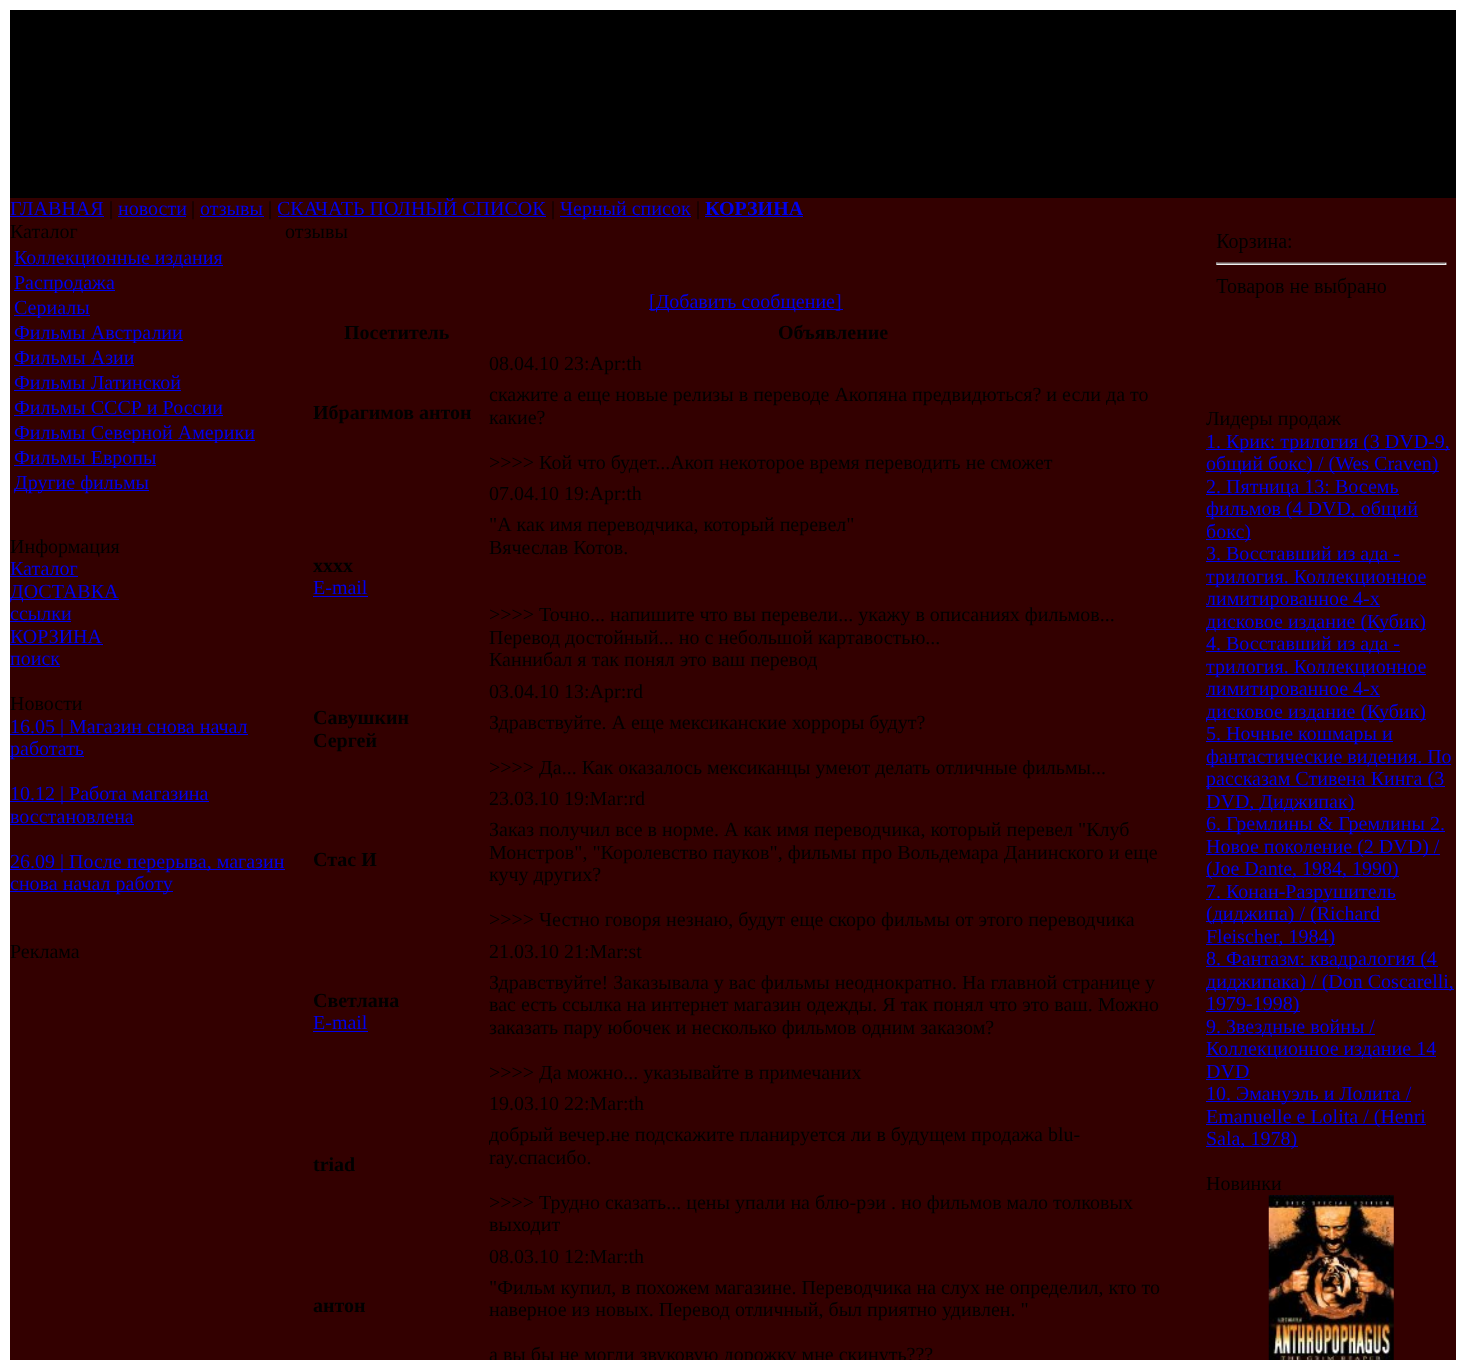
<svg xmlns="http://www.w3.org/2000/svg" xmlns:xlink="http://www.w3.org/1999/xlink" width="1466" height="1360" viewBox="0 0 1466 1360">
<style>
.cls-1{font:20px Liberation Serif;fill:#0000ee}
.cls-2{font:20px Liberation Serif;fill:#000000}
.cls-3{font:bold 20px Liberation Serif;fill:#0000ee}
.cls-4{font:bold 20px Liberation Serif;fill:#000000}
</style>
<rect width="100%" height="100%" fill="#ffffff"/>
<rect fill="#330000" x="10" y="198" width="1446" height="1162"/>
<rect fill="#000000" x="10" y="10" width="1446" height="188"/>
<rect fill="#0000ee" x="10" y="216" width="94" height="1"/>
<rect fill="#0000ee" x="118" y="216" width="68" height="1"/>
<rect fill="#0000ee" x="200" y="216" width="64" height="1"/>
<rect fill="#0000ee" x="278" y="216" width="268" height="1"/>
<rect fill="#0000ee" x="560" y="216" width="131" height="1"/>
<rect fill="#0000ee" x="705" y="216" width="98" height="1"/>
<rect fill="#0000ee" x="14" y="265" width="209" height="1"/>
<rect fill="#0000ee" x="14" y="290" width="101" height="1"/>
<rect fill="#0000ee" x="14" y="315" width="76" height="1"/>
<rect fill="#0000ee" x="14" y="340" width="169" height="1"/>
<rect fill="#0000ee" x="14" y="365" width="120" height="1"/>
<rect fill="#0000ee" x="14" y="390" width="167" height="1"/>
<rect fill="#0000ee" x="14" y="415" width="209" height="1"/>
<rect fill="#0000ee" x="14" y="440" width="241" height="1"/>
<rect fill="#0000ee" x="14" y="465" width="142" height="1"/>
<rect fill="#0000ee" x="14" y="490" width="135" height="1"/>
<rect fill="#0000ee" x="10" y="576" width="68" height="1"/>
<rect fill="#0000ee" x="10" y="599" width="109" height="1"/>
<rect fill="#0000ee" x="10" y="621" width="61" height="1"/>
<rect fill="#0000ee" x="10" y="644" width="93" height="1"/>
<rect fill="#0000ee" x="10" y="666" width="50" height="1"/>
<rect fill="#0000ee" x="10" y="734" width="238" height="1"/>
<rect fill="#0000ee" x="10" y="756" width="74" height="1"/>
<rect fill="#0000ee" x="10" y="801" width="199" height="1"/>
<rect fill="#0000ee" x="10" y="824" width="124" height="1"/>
<rect fill="#0000ee" x="10" y="869" width="275" height="1"/>
<rect fill="#0000ee" x="10" y="891" width="163" height="1"/>
<rect fill="#0000ee" x="649" y="309" width="194" height="1"/>
<rect fill="#0000ee" x="313" y="596" width="55" height="1"/>
<rect fill="#0000ee" x="313" y="1031" width="55" height="1"/>
<image xlink:href="image0.png" x="1216" y="234" width="231" height="64"/>
<rect fill="#0000ee" x="1206" y="449" width="244" height="1"/>
<rect fill="#0000ee" x="1206" y="471" width="233" height="1"/>
<rect fill="#0000ee" x="1206" y="494" width="193" height="1"/>
<rect fill="#0000ee" x="1206" y="516" width="212" height="1"/>
<rect fill="#0000ee" x="1206" y="539" width="45" height="1"/>
<rect fill="#0000ee" x="1206" y="561" width="194" height="1"/>
<rect fill="#0000ee" x="1206" y="584" width="220" height="1"/>
<rect fill="#0000ee" x="1206" y="606" width="174" height="1"/>
<rect fill="#0000ee" x="1206" y="629" width="220" height="1"/>
<rect fill="#0000ee" x="1206" y="651" width="194" height="1"/>
<rect fill="#0000ee" x="1206" y="674" width="220" height="1"/>
<rect fill="#0000ee" x="1206" y="696" width="174" height="1"/>
<rect fill="#0000ee" x="1206" y="719" width="220" height="1"/>
<rect fill="#0000ee" x="1206" y="741" width="187" height="1"/>
<rect fill="#0000ee" x="1206" y="764" width="245" height="1"/>
<rect fill="#0000ee" x="1206" y="786" width="239" height="1"/>
<rect fill="#0000ee" x="1206" y="809" width="149" height="1"/>
<rect fill="#0000ee" x="1206" y="831" width="239" height="1"/>
<rect fill="#0000ee" x="1206" y="854" width="234" height="1"/>
<rect fill="#0000ee" x="1206" y="876" width="193" height="1"/>
<rect fill="#0000ee" x="1206" y="899" width="190" height="1"/>
<rect fill="#0000ee" x="1206" y="921" width="174" height="1"/>
<rect fill="#0000ee" x="1206" y="944" width="129" height="1"/>
<rect fill="#0000ee" x="1206" y="966" width="232" height="1"/>
<rect fill="#0000ee" x="1206" y="989" width="248" height="1"/>
<rect fill="#0000ee" x="1206" y="1011" width="94" height="1"/>
<rect fill="#0000ee" x="1206" y="1034" width="169" height="1"/>
<rect fill="#0000ee" x="1206" y="1056" width="230" height="1"/>
<rect fill="#0000ee" x="1206" y="1079" width="44" height="1"/>
<rect fill="#0000ee" x="1206" y="1101" width="205" height="1"/>
<rect fill="#0000ee" x="1206" y="1124" width="220" height="1"/>
<rect fill="#0000ee" x="1206" y="1146" width="92" height="1"/>
<image xlink:href="image1.png" x="1268" y="1195" width="126" height="165"/>
<text class="cls-1" x="10" y="215">ГЛАВНАЯ</text>
<text class="cls-2" x="109" y="215">|</text>
<text class="cls-1" x="118" y="215">новости</text>
<text class="cls-2" x="191" y="215">|</text>
<text class="cls-1" x="200" y="215">отзывы</text>
<text class="cls-2" x="268" y="215">|</text>
<text class="cls-1" x="277" y="215">СКАЧАТЬ ПОЛНЫЙ СПИСОК</text>
<text class="cls-2" x="551" y="215">|</text>
<text class="cls-1" x="560" y="215">Черный список</text>
<text class="cls-2" x="696" y="215">|</text>
<text class="cls-3" x="705" y="215">КОРЗИНА</text>
<text class="cls-2" x="10" y="238">Каталог</text>
<text class="cls-1"><tspan x="14" y="264">Коллекционные издания</tspan><tspan x="14" y="289">Распродажа</tspan></text>
<rect fill="#330000" x="53" y="293" width="5" height="1"/>
<text class="cls-1" x="14" y="314">Сериалы</text>
<rect fill="#330000" x="36" y="318" width="5" height="1"/>
<text class="cls-1" x="14" y="339">Фильмы Австралии</text>
<rect fill="#330000" x="132" y="343" width="5" height="1"/>
<text class="cls-1"><tspan x="14" y="364">Фильмы Азии</tspan><tspan x="14" y="389">Фильмы Латинской</tspan><tspan x="14" y="414">Фильмы СССР и России</tspan><tspan x="14" y="439">Фильмы Северной Америки</tspan></text>
<rect fill="#330000" x="131" y="443" width="88" height="1"/>
<text class="cls-1" x="14" y="464">Фильмы Европы</text>
<rect fill="#330000" x="112" y="468" width="5" height="1"/>
<text class="cls-1" x="14" y="489">Другие фильмы</text>
<text class="cls-2" x="10" y="553">Информация</text>
<text class="cls-1"><tspan x="10" y="575">Каталог</tspan><tspan x="10" y="598">ДОСТАВКА</tspan><tspan x="10" y="620">ссылки</tspan><tspan x="10" y="643">КОРЗИНА</tspan><tspan x="10" y="665">поиск</tspan></text>
<text class="cls-2" x="10" y="710">Новости</text>
<text class="cls-1"><tspan x="10" y="733">16.05 | Магазин снова начал</tspan><tspan x="10" y="755">работать</tspan></text>
<text class="cls-1"><tspan x="10" y="800">10.12 | Работа магазина</tspan><tspan x="10" y="823">восстановлена</tspan></text>
<text class="cls-1"><tspan x="10" y="868">26.09 | После перерыва, магазин</tspan><tspan x="10" y="890">снова начал работу</tspan></text>
<text class="cls-2" x="10" y="958">Реклама</text>
<text class="cls-2" x="285" y="238">отзывы</text>
<text class="cls-1" x="649" y="308">[Добавить сообщение]</text>
<text class="cls-4" x="344" y="339">Посетитель</text>
<text class="cls-4" x="778" y="339">Объявление</text>
<text class="cls-2" x="489" y="370">08.04.10 23:Apr:th</text>
<text class="cls-4" x="313" y="419">Ибрагимов антон</text>
<text class="cls-2"><tspan x="489" y="401">скажите а еще новые релизы в переводе Акопяна предвидються? и если да то</tspan><tspan x="489" y="424">какие?</tspan></text>
<text class="cls-2"><tspan x="489" y="469">&gt;&gt;&gt;&gt; Кой что будет...Акоп некоторое время переводить не сможет</tspan><tspan x="489" y="500">07.04.10 19:Apr:th</tspan></text>
<text class="cls-4" x="313" y="572">xxxx</text>
<text class="cls-1" x="313" y="594">E-mail</text>
<text class="cls-2"><tspan x="489" y="531">"А как имя переводчика, который перевел"</tspan><tspan x="489" y="554">Вячеслав Котов.</tspan></text>
<text class="cls-2"><tspan x="489" y="621">&gt;&gt;&gt;&gt; Точно... напишите что вы перевели... укажу в описаниях фильмов...</tspan><tspan x="489" y="644">Перевод достойный... но с небольшой картавостью...</tspan><tspan x="489" y="666">Каннибал я так понял это ваш перевод</tspan><tspan x="489" y="698">03.04.10 13:Apr:rd</tspan></text>
<text class="cls-4"><tspan x="313" y="724">Савушкин</tspan><tspan x="313" y="747">Сергей</tspan></text>
<text class="cls-2" x="489" y="729">Здравствуйте. А еще мексиканские хорроры будут?</text>
<text class="cls-2"><tspan x="489" y="774">&gt;&gt;&gt;&gt; Да... Как оказалось мексиканцы умеют делать отличные фильмы...</tspan><tspan x="489" y="805">23.03.10 19:Mar:rd</tspan></text>
<text class="cls-4" x="313" y="866">Стас И</text>
<text class="cls-2"><tspan x="489" y="836">Заказ получил все в норме. А как имя переводчика, который перевел "Клуб</tspan><tspan x="489" y="859">Монстров", "Королевство пауков", фильмы про Вольдемара Данинского и еще</tspan><tspan x="489" y="881">кучу других?</tspan></text>
<text class="cls-2"><tspan x="489" y="926">&gt;&gt;&gt;&gt; Честно говоря незнаю, будут еще скоро фильмы от этого переводчика</tspan><tspan x="489" y="958">21.03.10 21:Mar:st</tspan></text>
<text class="cls-4" x="313" y="1007">Светлана</text>
<text class="cls-1" x="313" y="1029">E-mail</text>
<text class="cls-2"><tspan x="489" y="989">Здравствуйте! Заказывала у вас фильмы неоднократно. На главной странице у</tspan><tspan x="489" y="1011">вас есть ссылка на интернет магазин одежды. Я так понял что это ваш. Можно</tspan><tspan x="489" y="1034">заказать пару юбочек и несколько фильмов одним заказом?</tspan></text>
<text class="cls-2"><tspan x="489" y="1079">&gt;&gt;&gt;&gt; Да можно... указывайте в примечаних</tspan><tspan x="489" y="1110">19.03.10 22:Mar:th</tspan></text>
<text class="cls-4" x="313" y="1171">triad</text>
<text class="cls-2"><tspan x="489" y="1141">добрый вечер.не подскажите планируется ли в будущем продажа blu-</tspan><tspan x="489" y="1164">ray.спасибо.</tspan></text>
<text class="cls-2"><tspan x="489" y="1209">&gt;&gt;&gt;&gt; Трудно сказать... цены упали на блю-рэи . но фильмов мало толковых</tspan><tspan x="489" y="1231">выходит</tspan><tspan x="489" y="1263">08.03.10 12:Mar:th</tspan></text>
<text class="cls-4" x="313" y="1312">антон</text>
<text class="cls-2"><tspan x="489" y="1294">"Фильм купил, в похожем магазине. Переводчика на слух не определил, кто то</tspan><tspan x="489" y="1316">наверное из новых. Перевод отличный, был приятно удивлен. "</tspan></text>
<text class="cls-2" x="489" y="1361">а вы бы не могли звуковую дорожку мне скинуть???</text>
<text class="cls-2" x="1206" y="425">Лидеры продаж</text>
<text class="cls-1"><tspan x="1206" y="448">1. Крик: трилогия (3 DVD-9,</tspan><tspan x="1206" y="470">общий бокс) / (Wes Craven)</tspan><tspan x="1206" y="493">2. Пятница 13: Восемь</tspan><tspan x="1206" y="515">фильмов (4 DVD, общий</tspan><tspan x="1206" y="538">бокс)</tspan><tspan x="1206" y="560">3. Восставший из ада -</tspan><tspan x="1206" y="583">трилогия. Коллекционное</tspan><tspan x="1206" y="605">лимитированное 4-х</tspan><tspan x="1206" y="628">дисковое издание (Кубик)</tspan><tspan x="1206" y="650">4. Восставший из ада -</tspan><tspan x="1206" y="673">трилогия. Коллекционное</tspan><tspan x="1206" y="695">лимитированное 4-х</tspan><tspan x="1206" y="718">дисковое издание (Кубик)</tspan><tspan x="1206" y="740">5. Ночные кошмары и</tspan><tspan x="1206" y="763">фантастические видения. По</tspan><tspan x="1206" y="785">рассказам Стивена Кинга (3</tspan><tspan x="1206" y="808">DVD, Диджипак)</tspan><tspan x="1206" y="830">6. Гремлины &amp; Гремлины 2.</tspan><tspan x="1206" y="853">Новое поколение (2 DVD) /</tspan><tspan x="1206" y="875">(Joe Dante, 1984, 1990)</tspan><tspan x="1206" y="898">7. Конан-Разрушитель</tspan><tspan x="1206" y="920">(диджипа) / (Richard</tspan><tspan x="1206" y="943">Fleischer, 1984)</tspan><tspan x="1206" y="965">8. Фантазм: квадралогия (4</tspan><tspan x="1206" y="988">диджипака) / (Don Coscarelli,</tspan><tspan x="1206" y="1010">1979-1998)</tspan><tspan x="1206" y="1033">9. Звездные войны /</tspan><tspan x="1206" y="1055">Коллекционное издание 14</tspan><tspan x="1206" y="1078">DVD</tspan><tspan x="1206" y="1100">10. Эмануэль и Лолита /</tspan><tspan x="1206" y="1123">Emanuelle e Lolita / (Henri</tspan><tspan x="1206" y="1145">Sala, 1978)</tspan></text>
<text class="cls-2" x="1206" y="1190">Новинки</text>
</svg>
